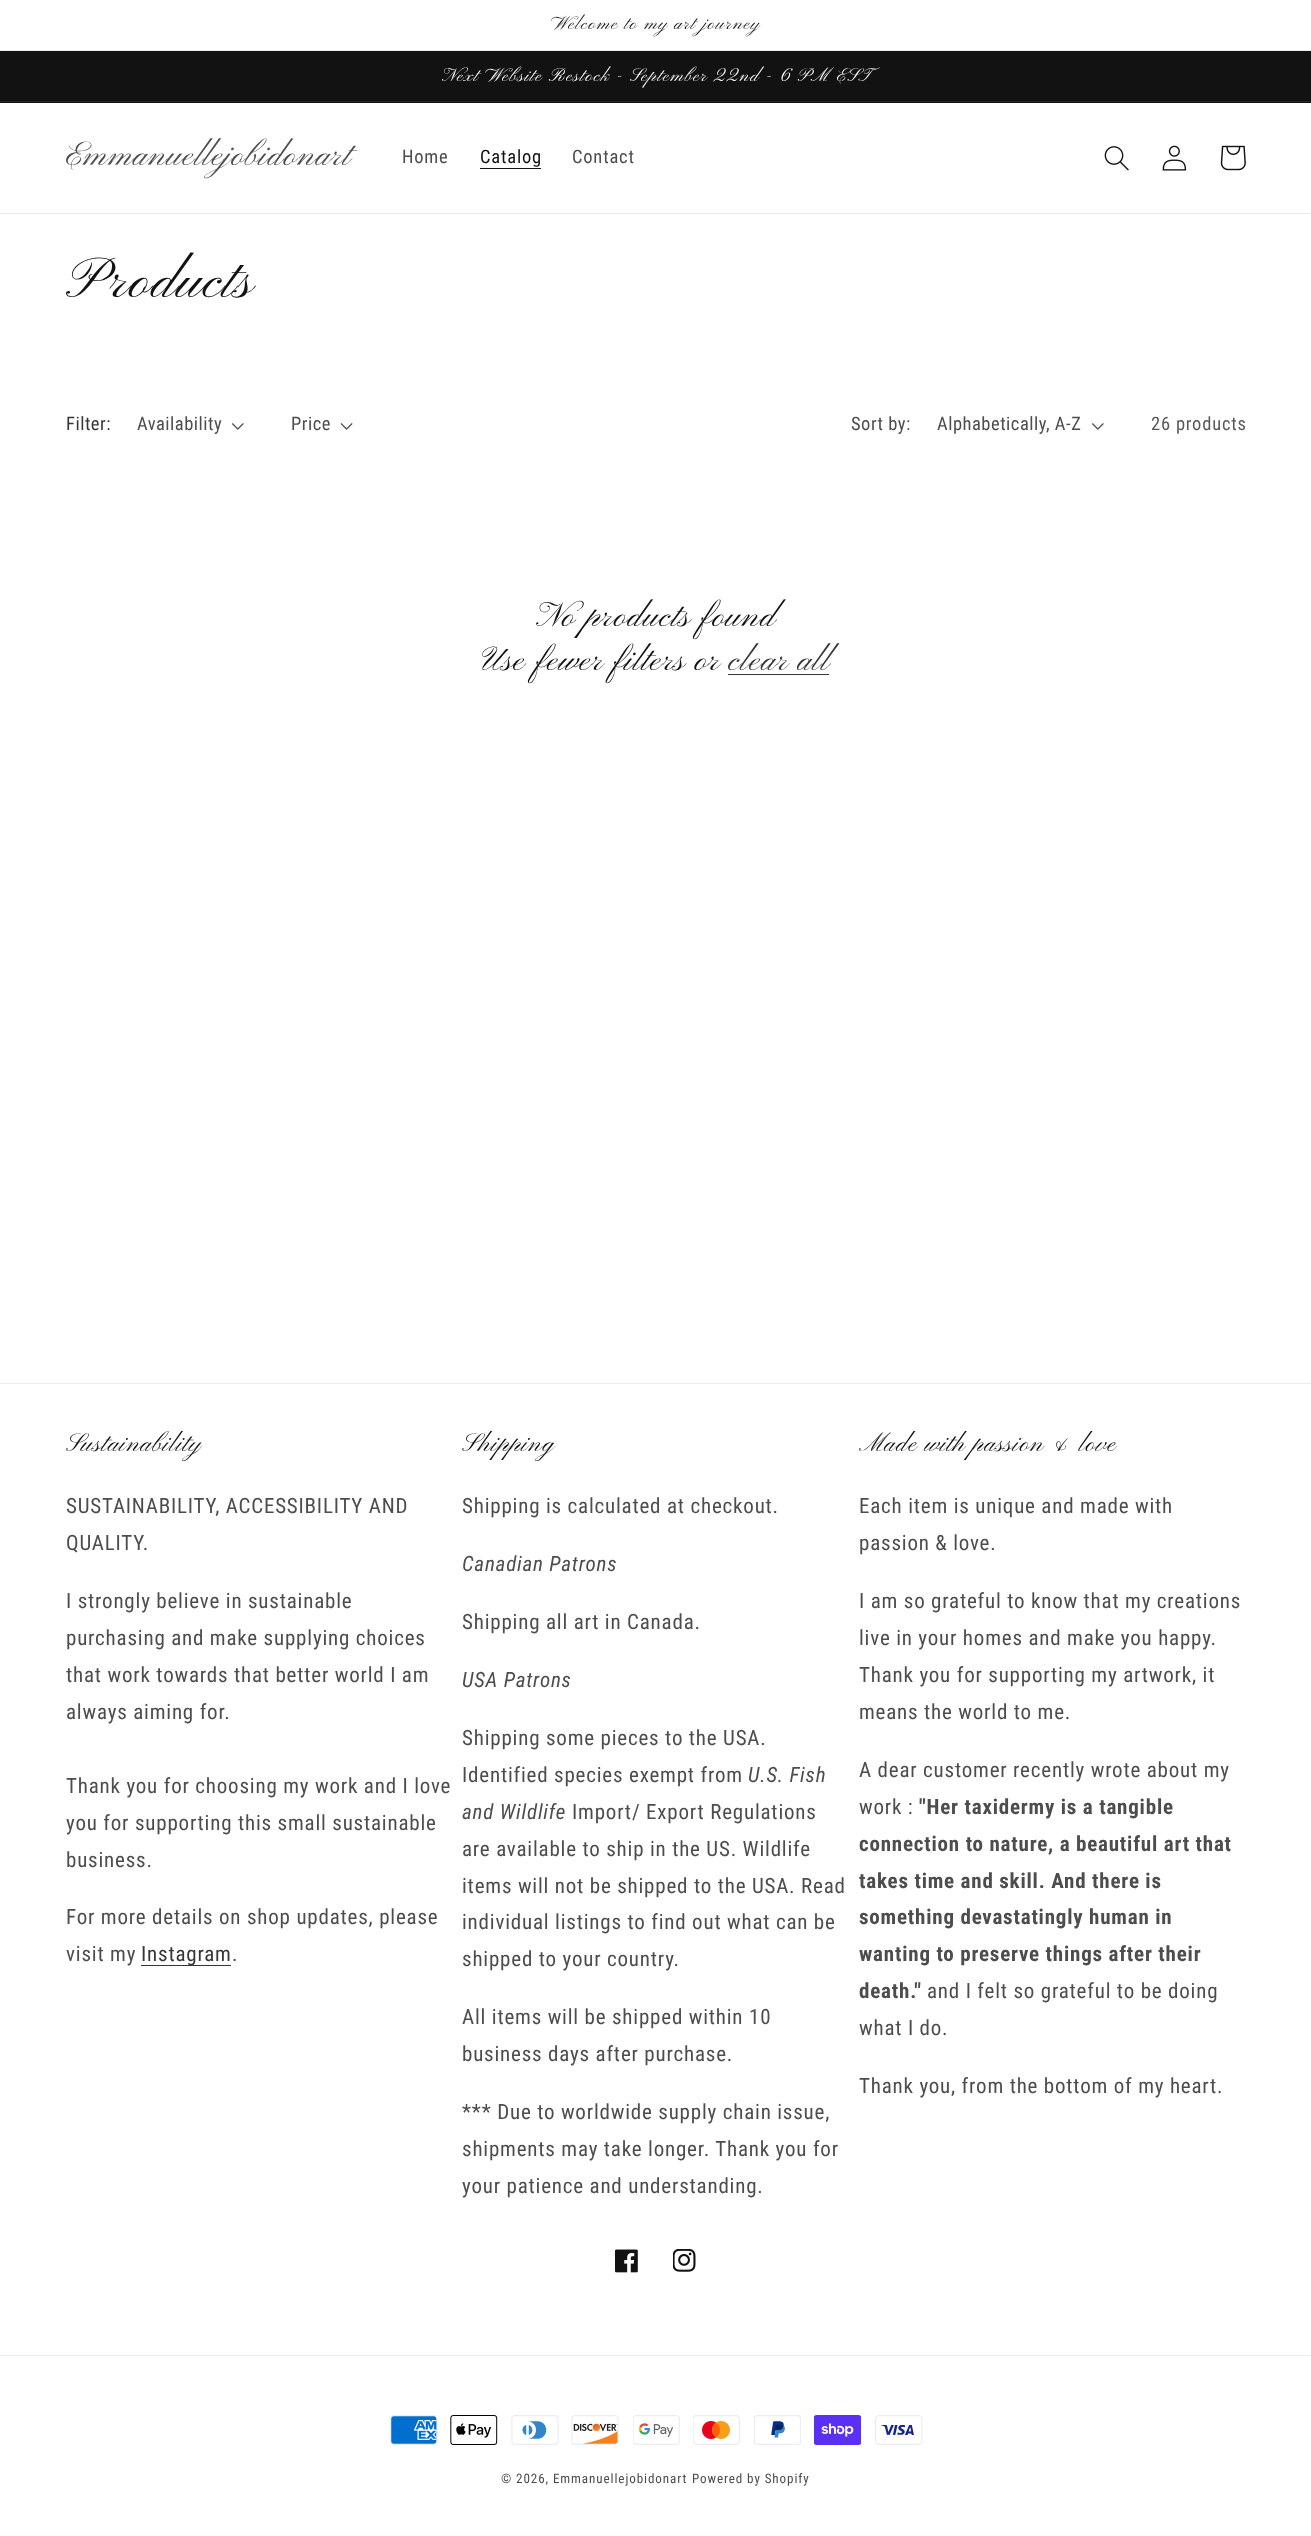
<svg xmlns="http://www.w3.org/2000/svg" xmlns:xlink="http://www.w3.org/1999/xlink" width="1311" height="2536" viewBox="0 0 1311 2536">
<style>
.cls-1{font:18.75px Pinyon Script;letter-spacing:1.3px;fill:#121212}
.cls-2{font:18.75px Pinyon Script;letter-spacing:1.3px;fill:#ffffff}
.cls-3{font:34.5px Pinyon Script;letter-spacing:0.9px;fill:#4d4d4d}
.cls-4{font:18.5px Roboto Condensed;letter-spacing:0.8px;fill:#4d4d4d}
.cls-5{font:18.5px Roboto Condensed;letter-spacing:0.8px;fill:#121212}
.cls-6{font:57.5px Pinyon Script;letter-spacing:0.9px;fill:#121212}
.cls-7{font:18.5px Roboto Condensed;letter-spacing:0.5px;fill:#363636}
.cls-8{font:18.5px Roboto Condensed;letter-spacing:0.5px;fill:#4d4d4d}
.cls-9{font:18.5px Roboto Condensed;letter-spacing:0.8px;fill:#595959}
.cls-10{font:34.5px Pinyon Script;letter-spacing:0.9px;fill:#121212}
.cls-11{font:34.5px Pinyon Script;letter-spacing:0.9px;fill:#363636}
.cls-12{font:25.9px Pinyon Script;letter-spacing:0.9px;fill:#121212}
.cls-13{font:21px Roboto Condensed;letter-spacing:0.8px;fill:#4d4d4d}
.cls-14{font:21px Roboto Condensed;letter-spacing:0.8px;fill:#363636}
.cls-15{font:italic 21px Roboto Condensed;letter-spacing:0.8px;fill:#4d4d4d}
.cls-16{font:bold 21px Roboto Condensed;letter-spacing:0.8px;fill:#4d4d4d}
.cls-17{font:13.1px Roboto Condensed;letter-spacing:0.9px;fill:#4d4d4d}
</style>
<rect width="100%" height="100%" fill="#ffffff"/>
<rect fill="#ececec" x="0" y="50" width="1311" height="1"/>
<rect fill="#121212" x="0" y="51" width="1311" height="52"/>
<rect fill="#252525" x="0" y="101" width="1311" height="1"/>
<rect fill="#ececec" x="0" y="213" width="1311" height="1"/>
<rect fill="#121212" x="480" y="168" width="61" height="1"/>
<image xlink:href="image0.png" x="1104" y="146" width="25" height="25"/>
<image xlink:href="image1.png" x="1162" y="145" width="25" height="26"/>
<image xlink:href="image2.png" x="1220" y="145" width="26" height="26"/>
<image xlink:href="image3.png" x="232" y="423" width="12" height="7"/>
<image xlink:href="image4.png" x="340" y="423" width="13" height="7"/>
<image xlink:href="image3.png" x="1092" y="423" width="12" height="7"/>
<rect fill="#363636" x="728" y="674" width="101" height="1"/>
<rect fill="#ececec" x="0" y="1383" width="1311" height="1"/>
<rect fill="#363636" x="141" y="1965" width="90" height="1"/>
<image xlink:href="image5.png" x="615" y="2249" width="23" height="24"/>
<image xlink:href="image6.png" x="673" y="2249" width="23" height="23"/>
<rect fill="#ececec" x="0" y="2355" width="1311" height="1"/>
<image xlink:href="image7.png" x="390" y="2415" width="48" height="30"/>
<image xlink:href="image8.png" x="450" y="2415" width="48" height="30"/>
<image xlink:href="image9.png" x="511" y="2415" width="48" height="30"/>
<image xlink:href="image10.png" x="571" y="2415" width="48" height="30"/>
<image xlink:href="image11.png" x="633" y="2415" width="47" height="30"/>
<image xlink:href="image12.png" x="693" y="2415" width="47" height="30"/>
<image xlink:href="image13.png" x="754" y="2415" width="47" height="30"/>
<image xlink:href="image14.png" x="814" y="2415" width="47" height="30"/>
<image xlink:href="image15.png" x="875" y="2415" width="48" height="30"/>
<text class="cls-1" x="551" y="29">Welcome to my art journey</text>
<text class="cls-2" x="442" y="81">Next Website Restock -</text>
<text class="cls-2" x="630" y="81">September 22nd - 6 PM EST</text>
<text class="cls-3" x="66" y="165">Emmanuellejobidonart</text>
<text class="cls-4" x="402" y="163">Home</text>
<text class="cls-5" x="480" y="163">Catalog</text>
<text class="cls-4" x="572" y="163">Contact</text>
<text class="cls-6" x="66" y="297">Products</text>
<text class="cls-7" x="66" y="430">Filter:</text>
<text class="cls-8" x="137" y="430">Availability</text>
<text class="cls-8" x="291" y="430">Price</text>
<text class="cls-8" x="851" y="430">Sort by:</text>
<text class="cls-8" x="937" y="430">Alphabetically, A-Z</text>
<text class="cls-9" x="1151" y="430">26 products</text>
<text class="cls-10" x="536" y="626">No products found</text>
<text class="cls-10" x="482" y="670">Use fewer filters or</text>
<text class="cls-11" x="728" y="670">clear all</text>
<text class="cls-12" x="66" y="1451">Sustainability</text>
<text class="cls-13"><tspan x="66" y="1513">SUSTAINABILITY, ACCESSIBILITY AND</tspan><tspan x="66" y="1550">QUALITY.</tspan></text>
<text class="cls-13"><tspan x="66" y="1608">I strongly believe in sustainable</tspan><tspan x="66" y="1645">purchasing and make supplying choices</tspan><tspan x="66" y="1682">that work towards that better world I am</tspan><tspan x="66" y="1719">always aiming for.</tspan></text>
<text class="cls-13"><tspan x="66" y="1793">Thank you for choosing my work and I love</tspan><tspan x="66" y="1830">you for supporting this small sustainable</tspan><tspan x="66" y="1867">business.</tspan></text>
<text class="cls-13"><tspan x="66" y="1924">For more details on shop updates, please</tspan><tspan x="66" y="1961">visit my</tspan></text>
<text class="cls-14" x="141" y="1961">Instagram</text>
<text class="cls-13" x="232" y="1961">.</text>
<text class="cls-12" x="462" y="1451">Shipping</text>
<text class="cls-13" x="462" y="1513">Shipping is calculated at checkout.</text>
<text class="cls-15" x="462" y="1571">Canadian Patrons</text>
<text class="cls-13" x="462" y="1629">Shipping all art in Canada.</text>
<text class="cls-15" x="462" y="1687">USA Patrons</text>
<text class="cls-13"><tspan x="462" y="1745">Shipping some pieces to the USA.</tspan><tspan x="462" y="1782">Identified species exempt from</tspan></text>
<text class="cls-15" x="748" y="1782">U.S. Fish</text>
<text class="cls-15" x="462" y="1819">and Wildlife</text>
<text class="cls-13" x="572" y="1819">Import/ Export Regulations</text>
<text class="cls-13"><tspan x="462" y="1856">are available to ship in the US. Wildlife</tspan><tspan x="462" y="1893">items will not be shipped to the USA. Read</tspan><tspan x="462" y="1929">individual listings to find out what can be</tspan><tspan x="462" y="1966">shipped to your country.</tspan></text>
<text class="cls-13"><tspan x="462" y="2024">All items will be shipped within 10</tspan><tspan x="462" y="2061">business days after purchase.</tspan></text>
<text class="cls-13"><tspan x="462" y="2119">*** Due to worldwide supply chain issue,</tspan><tspan x="462" y="2156">shipments may take longer. Thank you for</tspan><tspan x="462" y="2193">your patience and understanding.</tspan></text>
<text class="cls-12" x="859" y="1451">Made with passion &amp; love</text>
<text class="cls-13"><tspan x="859" y="1513">Each item is unique and made with</tspan><tspan x="859" y="1550">passion &amp; love.</tspan></text>
<text class="cls-13"><tspan x="859" y="1608">I am so grateful to know that my creations</tspan><tspan x="859" y="1645">live in your homes and make you happy.</tspan><tspan x="859" y="1682">Thank you for supporting my artwork, it</tspan><tspan x="859" y="1719">means the world to me.</tspan></text>
<text class="cls-13"><tspan x="859" y="1777">A dear customer recently wrote about my</tspan><tspan x="859" y="1814">work :</tspan></text>
<text class="cls-16" x="919" y="1814">"Her taxidermy is a tangible</text>
<text class="cls-16"><tspan x="859" y="1851">connection to nature, a beautiful art that</tspan><tspan x="859" y="1888">takes time and skill. And there is</tspan><tspan x="859" y="1924">something devastatingly human in</tspan><tspan x="859" y="1961">wanting to preserve things after their</tspan><tspan x="859" y="1998">death."</tspan></text>
<text class="cls-13" x="927" y="1998">and I felt so grateful to be doing</text>
<text class="cls-13" x="859" y="2035">what I do.</text>
<text class="cls-13" x="859" y="2093">Thank you, from the bottom of my heart.</text>
<text class="cls-17" x="501" y="2483">© 2026, Emmanuellejobidonart</text>
<text class="cls-17" x="692" y="2483">Powered by Shopify</text>
</svg>
